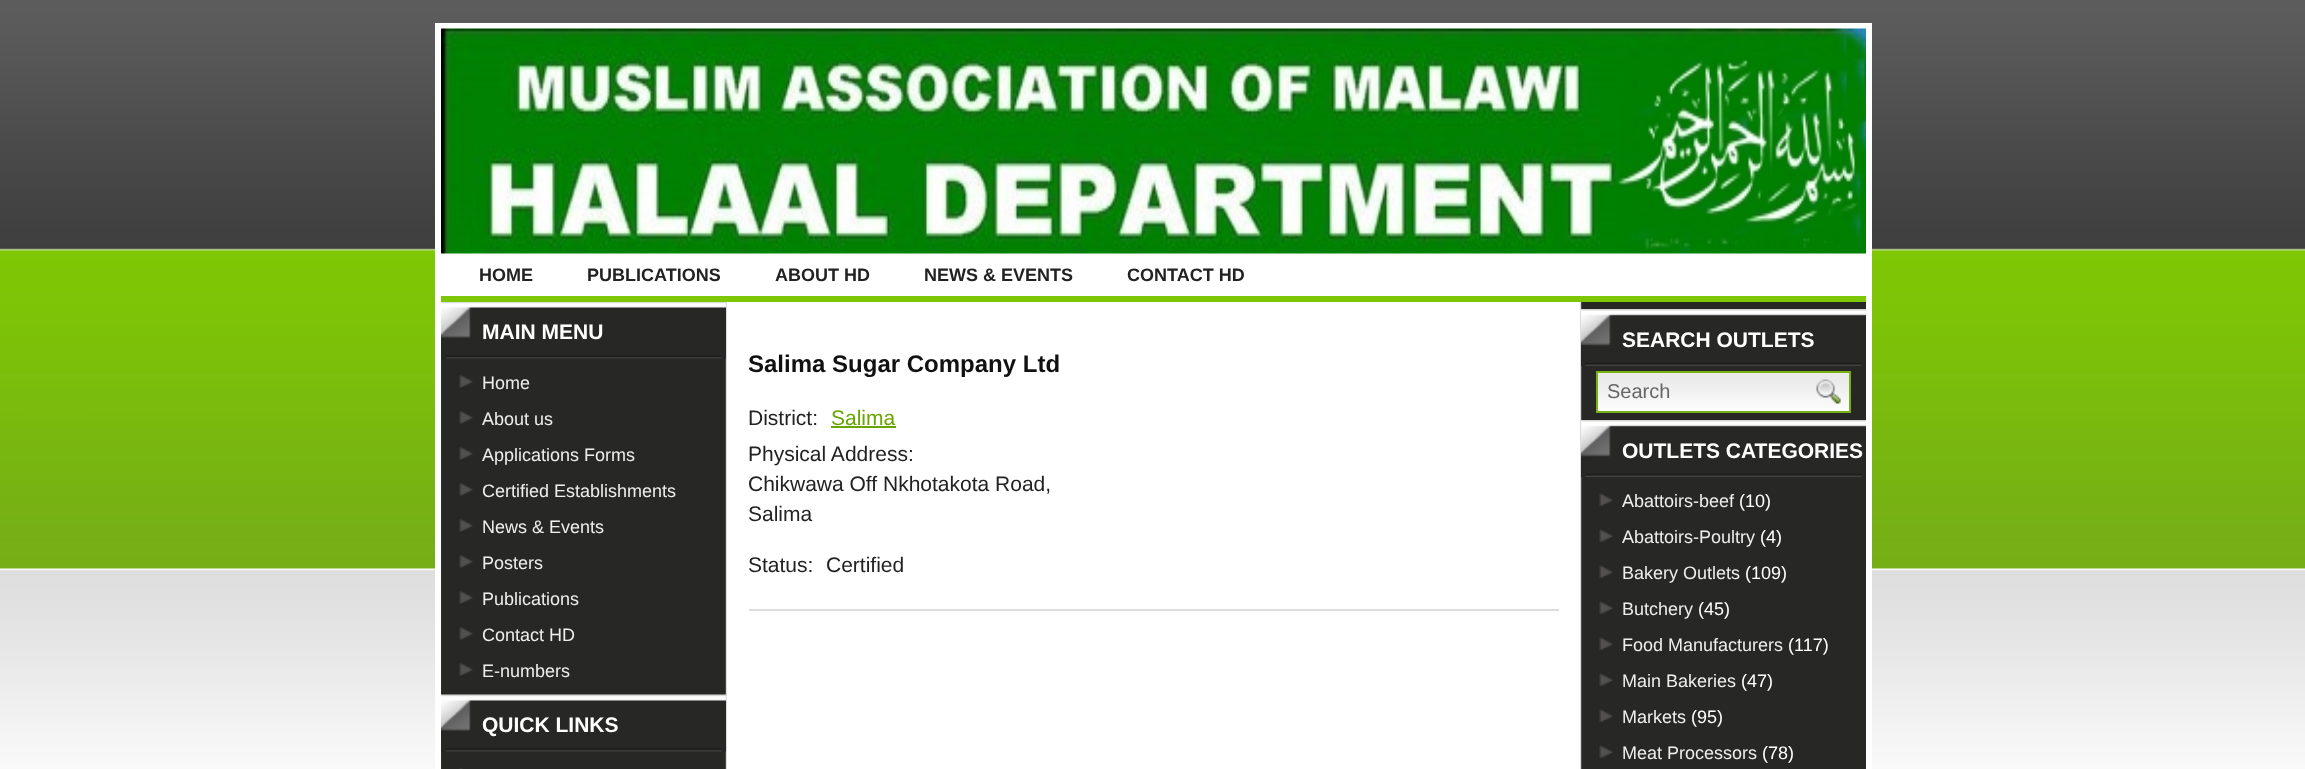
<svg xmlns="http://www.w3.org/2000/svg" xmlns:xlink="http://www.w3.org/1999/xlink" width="2305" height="769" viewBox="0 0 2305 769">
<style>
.cls-1{font:bold 18px Liberation Sans;fill:#222222}
.cls-2{font:bold 21px Liberation Sans;fill:#ffffff}
.cls-3{font:18px Liberation Sans;fill:#eeeeee}
.cls-4{font:bold 24px Liberation Sans;fill:#111111}
.cls-5{font:21px Liberation Sans;fill:#222222}
.cls-6{font:21px Liberation Sans;fill:#68a501}
.cls-7{font:20px Liberation Sans;fill:#666666}
.cls-8{font:18px Liberation Sans;fill:#ffffff}
</style>
<rect width="100%" height="100%" fill="#ffffff"/>
<image xlink:href="image0.png" x="0" y="0" width="2305" height="769"/>
<rect fill="#ffffff" x="441" y="253" width="1425" height="1"/>
<rect fill="none" stroke="#ffffff" stroke-width="6" x="438" y="26" width="1431" height="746"/>
<image xlink:href="image1.png" x="441" y="28" width="1425" height="226"/>
<rect fill="#ffffff" x="441" y="254" width="1425" height="42"/>
<rect fill="#7ec704" x="441" y="297" width="1425" height="5"/>
<image xlink:href="image2.png" x="441" y="302" width="1425" height="467"/>
<image xlink:href="image3.png" x="441" y="302" width="285" height="57"/>
<image xlink:href="image4.png" x="459" y="375" width="14" height="13"/>
<image xlink:href="image4.png" x="459" y="411" width="14" height="13"/>
<image xlink:href="image4.png" x="459" y="447" width="14" height="13"/>
<image xlink:href="image4.png" x="459" y="483" width="14" height="13"/>
<image xlink:href="image4.png" x="459" y="519" width="14" height="13"/>
<image xlink:href="image4.png" x="459" y="555" width="14" height="13"/>
<image xlink:href="image4.png" x="459" y="591" width="14" height="13"/>
<image xlink:href="image4.png" x="459" y="627" width="14" height="13"/>
<image xlink:href="image4.png" x="459" y="663" width="14" height="13"/>
<image xlink:href="image5.png" x="441" y="694" width="285" height="58"/>
<image xlink:href="image6.png" x="459" y="768" width="4" height="1"/>
<rect fill="#dddddd" x="749" y="609" width="810" height="2"/>
<rect fill="#68a501" x="831" y="426" width="65" height="2"/>
<image xlink:href="image7.png" x="1581" y="309" width="285" height="57"/>
<rect fill="#ffffff" x="1598" y="408" width="251" height="3"/>
<image xlink:href="image8.png" x="1598" y="373" width="251" height="35"/>
<rect fill="none" stroke="#76af16" stroke-width="2" x="1597" y="372" width="253" height="40"/>
<image xlink:href="image9.png" x="1816" y="379" width="25" height="25"/>
<image xlink:href="image7.png" x="1581" y="420" width="285" height="57"/>
<image xlink:href="image10.png" x="1599" y="493" width="14" height="14"/>
<image xlink:href="image10.png" x="1599" y="529" width="14" height="14"/>
<image xlink:href="image10.png" x="1599" y="565" width="14" height="14"/>
<image xlink:href="image10.png" x="1599" y="601" width="14" height="14"/>
<image xlink:href="image10.png" x="1599" y="637" width="14" height="14"/>
<image xlink:href="image10.png" x="1599" y="673" width="14" height="14"/>
<image xlink:href="image10.png" x="1599" y="709" width="14" height="14"/>
<image xlink:href="image10.png" x="1599" y="745" width="14" height="14"/>
<text class="cls-1" x="479" y="281">HOME</text>
<text class="cls-1" x="587" y="281">PUBLICATIONS</text>
<text class="cls-1" x="775" y="281">ABOUT HD</text>
<text class="cls-1" x="924" y="281">NEWS &amp; EVENTS</text>
<text class="cls-1" x="1127" y="281">CONTACT HD</text>
<text class="cls-2" x="482" y="339">MAIN MENU</text>
<text class="cls-3" x="482" y="389">Home</text>
<text class="cls-3" x="482" y="425">About us</text>
<text class="cls-3" x="482" y="461">Applications Forms</text>
<text class="cls-3" x="482" y="497">Certified Establishments</text>
<text class="cls-3" x="482" y="533">News &amp; Events</text>
<text class="cls-3" x="482" y="569">Posters</text>
<text class="cls-3" x="482" y="605">Publications</text>
<text class="cls-3" x="482" y="641">Contact HD</text>
<text class="cls-3" x="482" y="677">E-numbers</text>
<text class="cls-2" x="482" y="732">QUICK LINKS</text>
<text class="cls-4" x="748" y="372">Salima Sugar Company Ltd</text>
<text class="cls-5" x="748" y="425">District:</text>
<text class="cls-6" x="831" y="425">Salima</text>
<text class="cls-5"><tspan x="748" y="461">Physical Address:</tspan><tspan x="748" y="491">Chikwawa Off Nkhotakota Road,</tspan><tspan x="748" y="521">Salima</tspan></text>
<text class="cls-5" x="748" y="572">Status:</text>
<text class="cls-5" x="826" y="572">Certified</text>
<text class="cls-2" x="1622" y="347">SEARCH OUTLETS</text>
<text class="cls-7" x="1607" y="398">Search</text>
<text class="cls-2" x="1622" y="458">OUTLETS CATEGORIES</text>
<text class="cls-3" x="1622" y="507">Abattoirs-beef</text>
<text class="cls-8" x="1739" y="507">(10)</text>
<text class="cls-3" x="1622" y="543">Abattoirs-Poultry</text>
<text class="cls-8" x="1760" y="543">(4)</text>
<text class="cls-3" x="1622" y="579">Bakery Outlets</text>
<text class="cls-8" x="1745" y="579">(109)</text>
<text class="cls-3" x="1622" y="615">Butchery</text>
<text class="cls-8" x="1698" y="615">(45)</text>
<text class="cls-3" x="1622" y="651">Food Manufacturers</text>
<text class="cls-8" x="1788" y="651">(117)</text>
<text class="cls-3" x="1622" y="687">Main Bakeries</text>
<text class="cls-8" x="1741" y="687">(47)</text>
<text class="cls-3" x="1622" y="723">Markets</text>
<text class="cls-8" x="1691" y="723">(95)</text>
<text class="cls-3" x="1622" y="759">Meat Processors</text>
<text class="cls-8" x="1762" y="759">(78)</text>
</svg>
